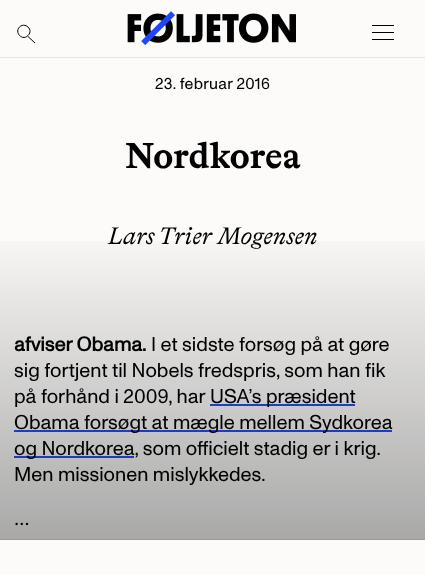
<svg xmlns="http://www.w3.org/2000/svg" xmlns:xlink="http://www.w3.org/1999/xlink" width="425" height="575" viewBox="0 0 425 575">
<style>
.cls-1{font:16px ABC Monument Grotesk;letter-spacing:0.25px;fill:#000000}
.cls-2{font:bold 36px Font;fill:#000000}
.cls-3{font:italic 24px Font;fill:#000000}
.cls-4{font:bold 20px ABC Monument Grotesk;fill:#000000}
.cls-5{font:20px ABC Monument Grotesk;fill:#000000}
.cls-6{font:18px Font;fill:#000000}
</style>
<defs>
<linearGradient id="g1" gradientUnits="userSpaceOnUse" x1="213" y1="540" x2="213" y2="220"><stop offset="0" stop-color="#000000" stop-opacity="0.33"/><stop offset="1" stop-color="#000000" stop-opacity="0"/></linearGradient>
</defs>
<rect width="100%" height="100%" fill="#fcfbfa"/>
<rect fill="#e5e5e5" x="0" y="57" width="425" height="1"/>
<path fill="none" stroke="#000000" d="M28 35.5C22.5 41.5 14 32.5 19.5 27C25 21.5 34 30 28 35.5ZM28 36.5L35 43"/>
<image xlink:href="image0.png" x="127" y="11" width="169" height="34"/>
<rect fill="#000000" x="372" y="25" width="22" height="1"/>
<rect fill="#000000" x="372" y="32" width="22" height="1"/>
<rect fill="#000000" x="372" y="39" width="22" height="1"/>
<rect fill="#224ef9" x="210" y="404" width="145" height="2"/>
<rect fill="#224ef9" x="14" y="430" width="378" height="2"/>
<rect fill="#224ef9" x="14" y="456" width="120" height="2"/>
<rect fill="#e5e5e5" x="0" y="539" width="425" height="1"/>
<text class="cls-1" x="155" y="89">23. februar 2016</text>
<text class="cls-2" x="125" y="168">Nordkorea</text>
<text class="cls-3" x="108" y="244">Lars Trier Mogensen</text>
<text class="cls-4" x="14" y="351">afviser Obama.</text>
<text class="cls-5" x="151" y="351">I et sidste forsøg på at gøre</text>
<text class="cls-5"><tspan x="14" y="377">sig fortjent til Nobels fredspris, som han fik</tspan><tspan x="14" y="403">på forhånd i 2009, har</tspan></text>
<text class="cls-5" x="210" y="403">USA’s præsident</text>
<text class="cls-5"><tspan x="14" y="429">Obama forsøgt at mægle mellem Sydkorea</tspan><tspan x="14" y="455">og Nordkorea, som officielt stadig er i krig.</tspan><tspan x="14" y="481">Men missionen mislykkedes.</tspan></text>
<text class="cls-6" x="14" y="525">…</text>
<rect fill="url(#g1)" x="0" y="241" width="425" height="299"/>
</svg>
